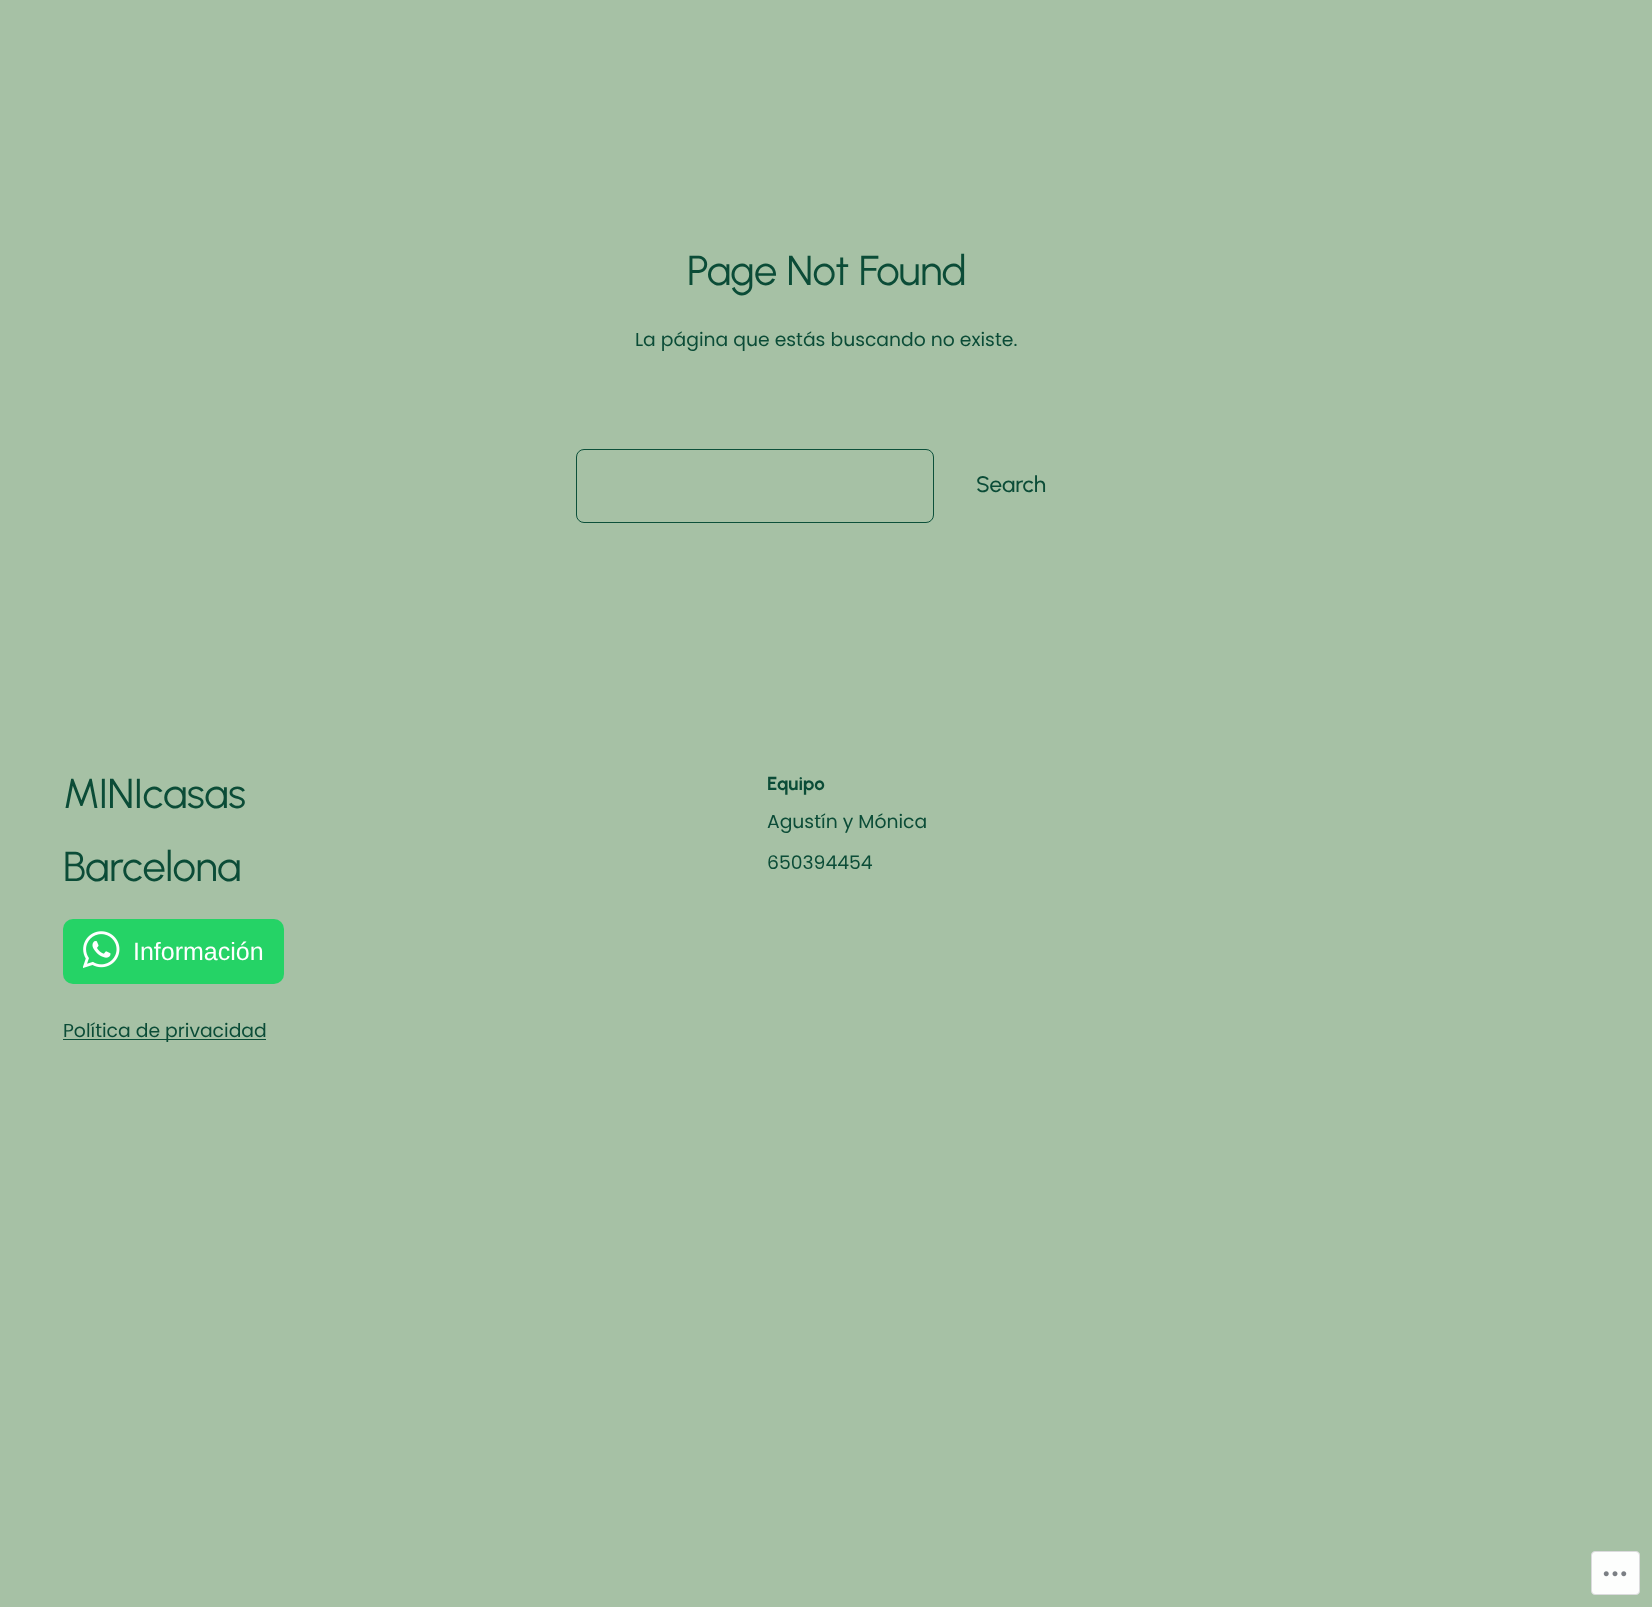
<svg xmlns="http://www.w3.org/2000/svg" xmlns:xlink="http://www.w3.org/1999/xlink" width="1652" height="1607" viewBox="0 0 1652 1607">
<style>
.cls-1{font:41.75px Urbanist;letter-spacing:-0.4px;fill:#0b4c37}
.cls-2{font:18.8px Poppins;fill:#0b4c37}
.cls-3{font:500 22.5px Urbanist;fill:#0b4c37}
.cls-4{font:25px Liberation Sans;fill:#ffffff}
.cls-5{font:bold 18.8px Urbanist;fill:#0b4c37}
</style>
<rect width="100%" height="100%" fill="#a6c1a5"/>
<rect fill="none" stroke="#0c503a" x="576.5" y="449.5" width="357" height="73" rx="7.5"/>
<rect fill="#25d366" x="63" y="919" width="221" height="65" rx="10"/>
<image xlink:href="image0.png" x="83" y="931" width="37" height="37"/>
<rect fill="#0b4c37" x="63" y="1039" width="203" height="1"/>
<rect fill="#fdfefd" stroke="#dbdbdd" x="1591.5" y="1551.5" width="48" height="43" rx="3.5"/>
<image xlink:href="image1.png" x="1603" y="1571" width="24" height="6"/>
<text class="cls-1" x="687" y="285">Page Not Found</text>
<text class="cls-2" x="635" y="346">La página que estás buscando no existe.</text>
<text class="cls-3" x="976" y="492">Search</text>
<text class="cls-1"><tspan x="63" y="808">MINIcasas</tspan><tspan x="63" y="881">Barcelona</tspan></text>
<text class="cls-4" x="133" y="960">Información</text>
<text class="cls-2" x="63" y="1037">Política de privacidad</text>
<text class="cls-5" x="767" y="790">Equipo</text>
<text class="cls-2" x="767" y="828">Agustín y Mónica</text>
<text class="cls-2" x="767" y="869">650394454</text>
</svg>
